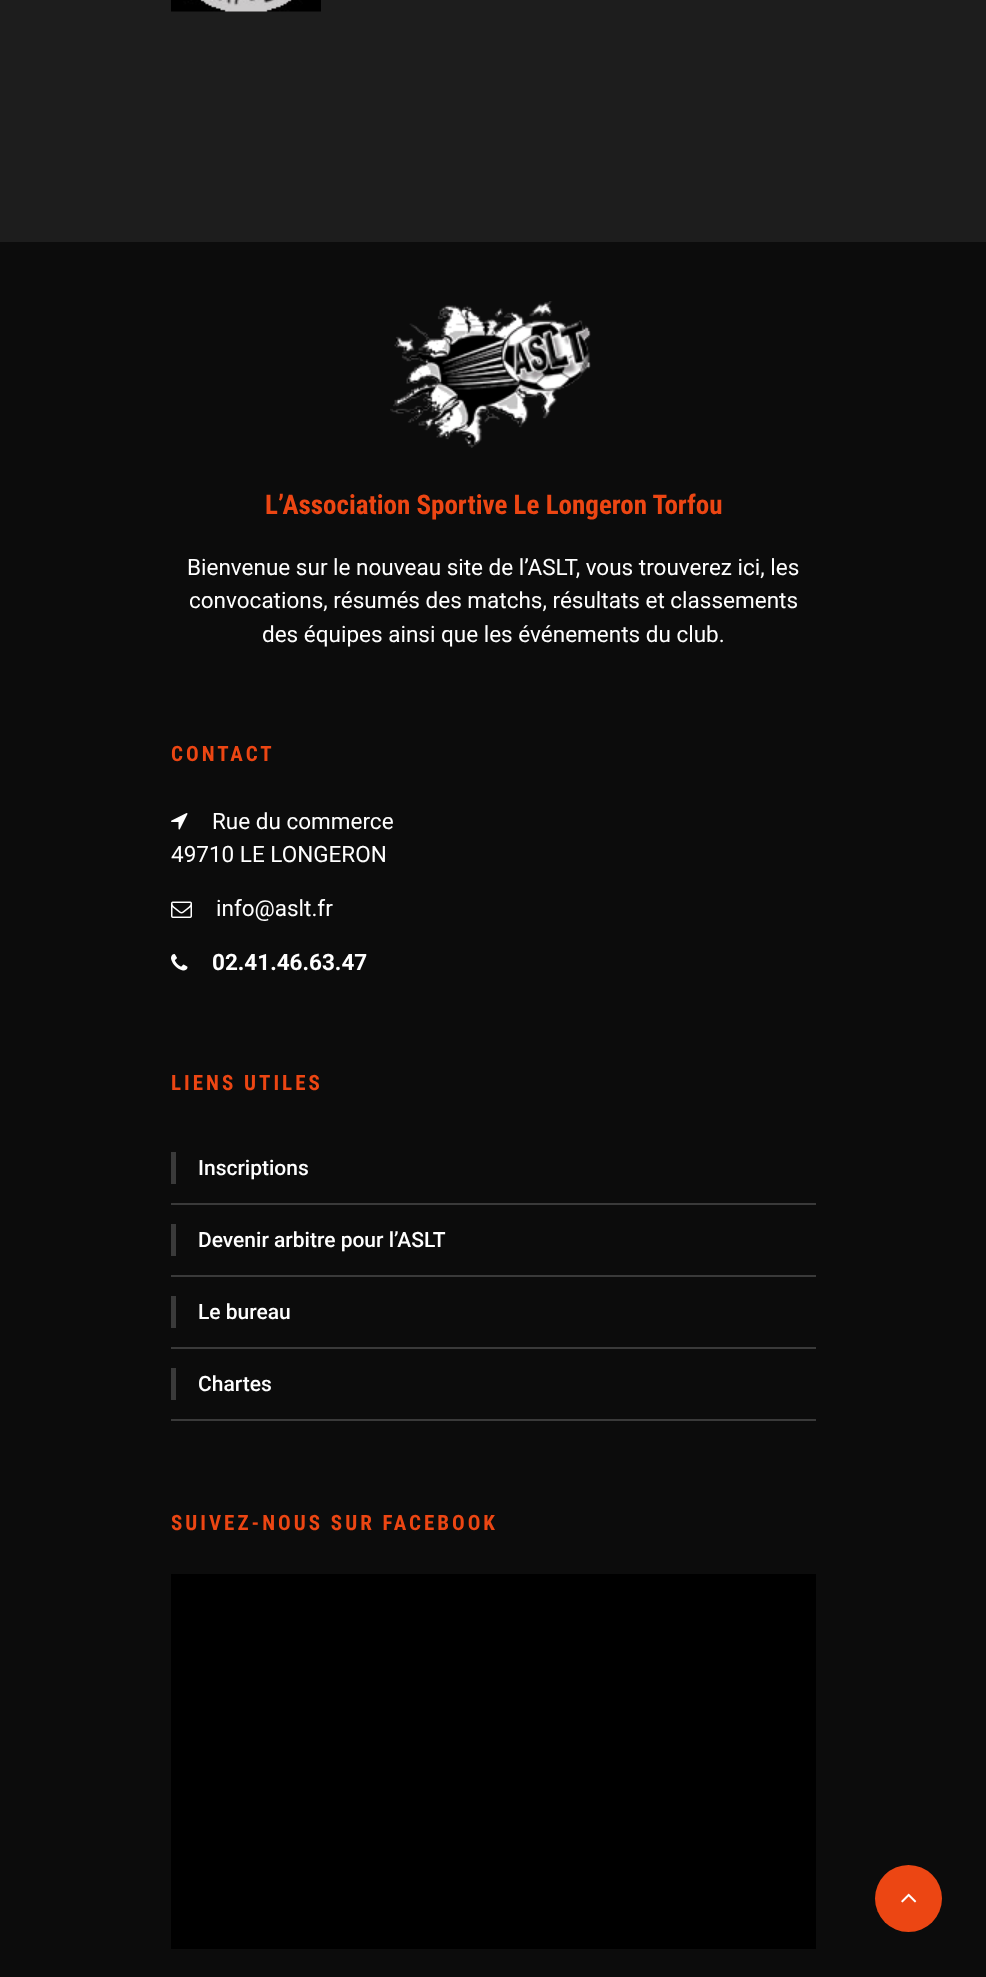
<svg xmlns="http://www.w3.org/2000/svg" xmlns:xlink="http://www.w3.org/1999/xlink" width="986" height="1977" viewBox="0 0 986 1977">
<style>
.cls-1{font:bold 27px Roboto Condensed;fill:#ec4613}
.cls-2{font:22.5px Roboto;fill:#ffffff}
.cls-3{font:bold 21px Roboto Condensed;letter-spacing:3px;fill:#ec4613}
.cls-4{font:bold 22.5px Roboto;fill:#ffffff}
.cls-5{font:500 21px Roboto;fill:#ffffff}
</style>
<rect width="100%" height="100%" fill="#1d1d1d"/>
<image xlink:href="image0.png" x="171" y="0" width="150" height="12"/>
<rect fill="#0c0c0c" x="0" y="242" width="986" height="1735"/>
<image xlink:href="image1.png" x="390" y="301" width="201" height="147"/>
<image xlink:href="image2.png" x="171" y="813" width="17" height="17"/>
<image xlink:href="image3.png" x="171" y="901" width="21" height="17"/>
<image xlink:href="image4.png" x="171" y="954" width="17" height="17"/>
<rect fill="#3a3a3a" x="171" y="1203" width="645" height="2"/>
<rect fill="#3a3a3a" x="171" y="1152" width="5" height="32"/>
<rect fill="#3a3a3a" x="171" y="1275" width="645" height="2"/>
<rect fill="#3a3a3a" x="171" y="1224" width="5" height="32"/>
<rect fill="#3a3a3a" x="171" y="1347" width="645" height="2"/>
<rect fill="#3a3a3a" x="171" y="1296" width="5" height="32"/>
<rect fill="#3a3a3a" x="171" y="1419" width="645" height="2"/>
<rect fill="#3a3a3a" x="171" y="1368" width="5" height="32"/>
<rect fill="#000000" x="171" y="1574" width="645" height="375"/>
<circle fill="#ec4613" cx="908.5" cy="1898.5" r="33.5"/>
<image xlink:href="image5.png" x="901" y="1893" width="16" height="10"/>
<text class="cls-1" x="265" y="514">L’Association Sportive Le Longeron Torfou</text>
<text class="cls-2" x="187" y="575">Bienvenue sur le nouveau site de l’ASLT, vous trouverez ici, les</text>
<text class="cls-2" x="189" y="608">convocations, résumés des matchs, résultats et classements</text>
<text class="cls-2" x="262" y="642">des équipes ainsi que les événements du club.</text>
<text class="cls-3" x="171" y="761">CONTACT</text>
<text class="cls-2" x="212" y="829">Rue du commerce</text>
<text class="cls-2" x="171" y="862">49710 LE LONGERON</text>
<text class="cls-2" x="216" y="916">info@aslt.fr</text>
<text class="cls-4" x="212" y="970">02.41.46.63.47</text>
<text class="cls-3" x="171" y="1090">LIENS UTILES</text>
<text class="cls-5" x="198" y="1175">Inscriptions</text>
<text class="cls-5" x="198" y="1247">Devenir arbitre pour l’ASLT</text>
<text class="cls-5" x="198" y="1319">Le bureau</text>
<text class="cls-5" x="198" y="1391">Chartes</text>
<text class="cls-3" x="171" y="1530">SUIVEZ-NOUS SUR FACEBOOK</text>
</svg>
